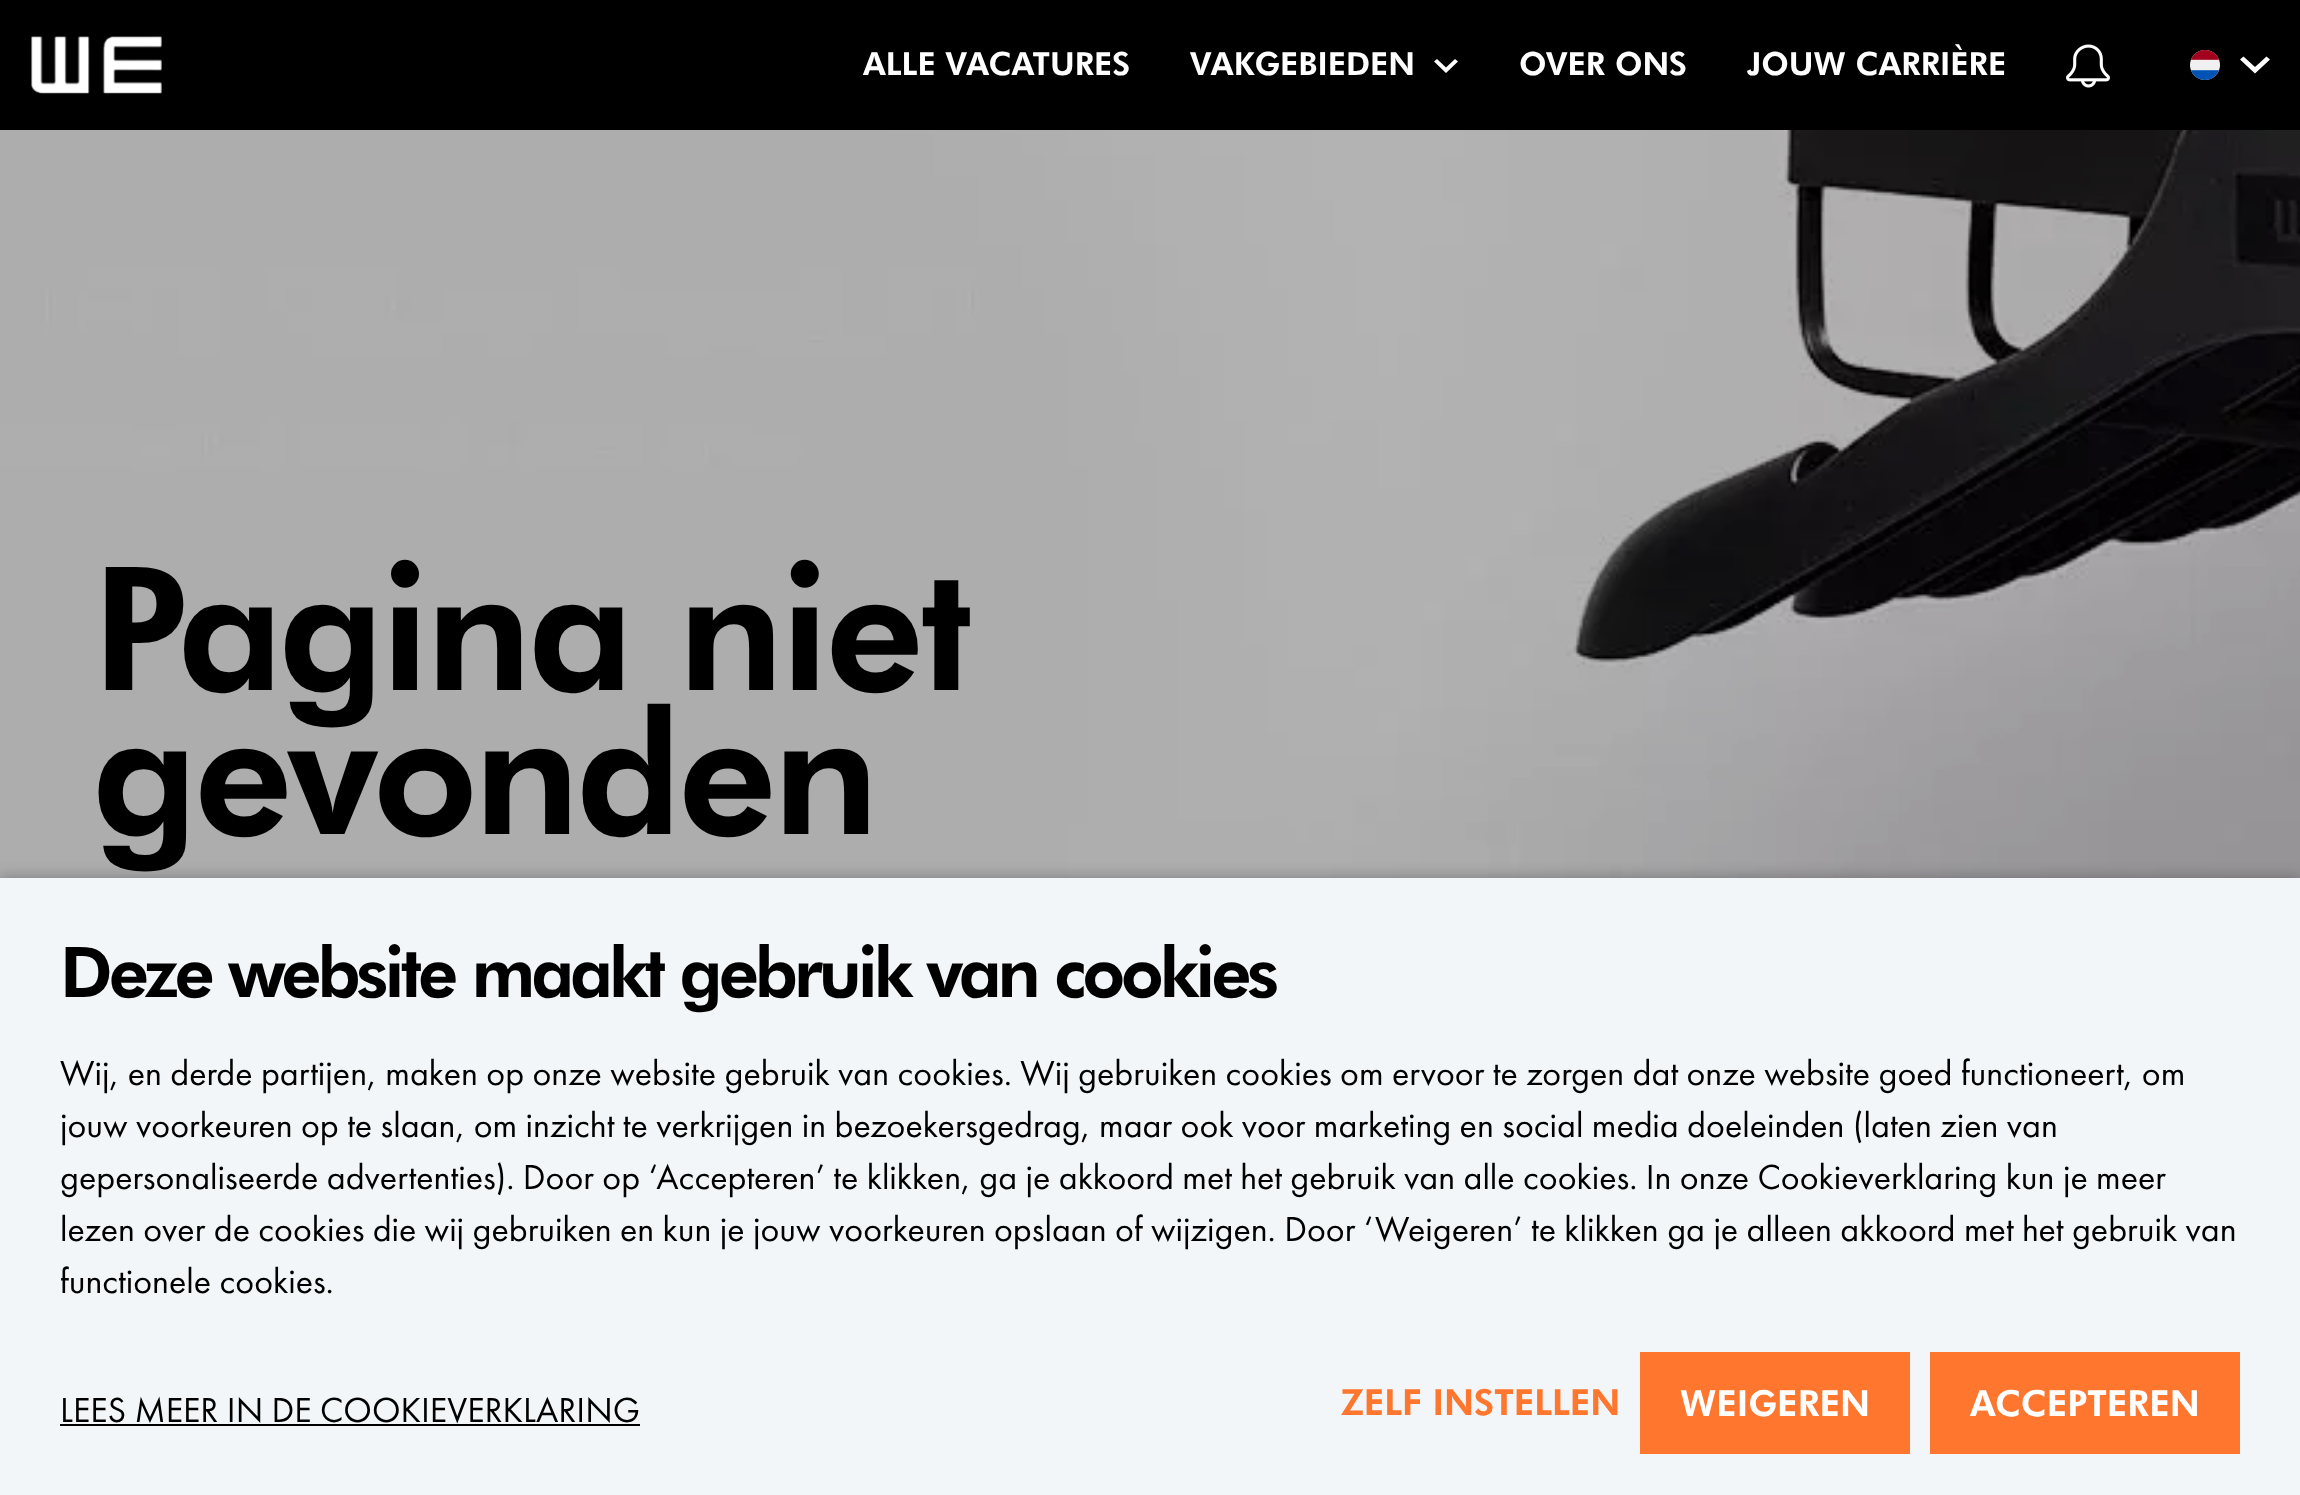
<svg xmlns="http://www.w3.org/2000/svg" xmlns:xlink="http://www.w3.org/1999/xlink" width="2300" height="1495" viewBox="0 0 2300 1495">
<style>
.cls-1{font:900 32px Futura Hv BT;fill:#ffffff}
.cls-2{font:900 172px Futura Hv BT;letter-spacing:-4px;fill:#000000}
.cls-3{font:900 70px Futura Hv BT;letter-spacing:-4px;fill:#000000}
.cls-4{font:36px Futura PT;fill:#000000}
.cls-5{font:900 36px Futura Hv BT;fill:#ff762e}
.cls-6{font:900 36px Futura Hv BT;fill:#ffffff}
</style>
<rect width="100%" height="100%" fill="#ffffff"/>
<rect fill="#000000" x="0" y="0" width="2300" height="130"/>
<image xlink:href="image0.png" x="31" y="36" width="131" height="58"/>
<path fill="#ffffff" d="M1455 59L1446 67.5L1437 59L1434 61.5L1446 73L1458 61.5Z"/>
<image xlink:href="image1.png" x="2066" y="44" width="44" height="44"/>
<image xlink:href="image2.png" x="2190" y="50" width="30" height="30"/>
<path fill="#ffffff" d="M2266.5 56.5L2255 67L2243.5 56.5L2240 59.5L2255 73.5L2270 59.5Z"/>
<image xlink:href="image3.png" x="0" y="130" width="2300" height="748"/>
<rect fill="#212121" fill-opacity="0.28" filter="blur(7px)" x="-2" y="876" width="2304" height="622"/>
<rect fill="#f2f6f8" x="0" y="878" width="2300" height="617"/>
<rect fill="#000000" x="60" y="1424" width="580" height="2"/>
<rect fill="#ff762e" x="1640" y="1352" width="270" height="102"/>
<rect fill="#ff762e" x="1930" y="1352" width="310" height="102"/>
<text class="cls-1" x="863" y="75">ALLE VACATURES</text>
<text class="cls-1" x="1190" y="75">VAKGEBIEDEN</text>
<text class="cls-1" x="1519" y="75">OVER ONS</text>
<text class="cls-1" x="1747" y="75">JOUW CARRIÈRE</text>
<text class="cls-2"><tspan x="92" y="690">Pagina niet</tspan><tspan x="92" y="834">gevonden</tspan></text>
<text class="cls-3" x="60" y="997">Deze website maakt gebruik van cookies</text>
<text class="cls-4"><tspan x="60" y="1085">Wij, en derde partijen, maken op onze website gebruik van cookies. Wij gebruiken cookies om ervoor te zorgen dat onze website goed functioneert, om</tspan><tspan x="60" y="1137">jouw voorkeuren op te slaan, om inzicht te verkrijgen in bezoekersgedrag, maar ook voor marketing en social media doeleinden (laten zien van</tspan><tspan x="60" y="1189">gepersonaliseerde advertenties). Door op ‘Accepteren’ te klikken, ga je akkoord met het gebruik van alle cookies. In onze Cookieverklaring kun je meer</tspan><tspan x="60" y="1241">lezen over de cookies die wij gebruiken en kun je jouw voorkeuren opslaan of wijzigen. Door ‘Weigeren’ te klikken ga je alleen akkoord met het gebruik van</tspan><tspan x="60" y="1293">functionele cookies.</tspan></text>
<text class="cls-4" x="60" y="1422">LEES MEER IN DE COOKIEVERKLARING</text>
<text class="cls-5" x="1341" y="1415">ZELF INSTELLEN</text>
<text class="cls-6" x="1680" y="1416">WEIGEREN</text>
<text class="cls-6" x="1970" y="1416">ACCEPTEREN</text>
</svg>
